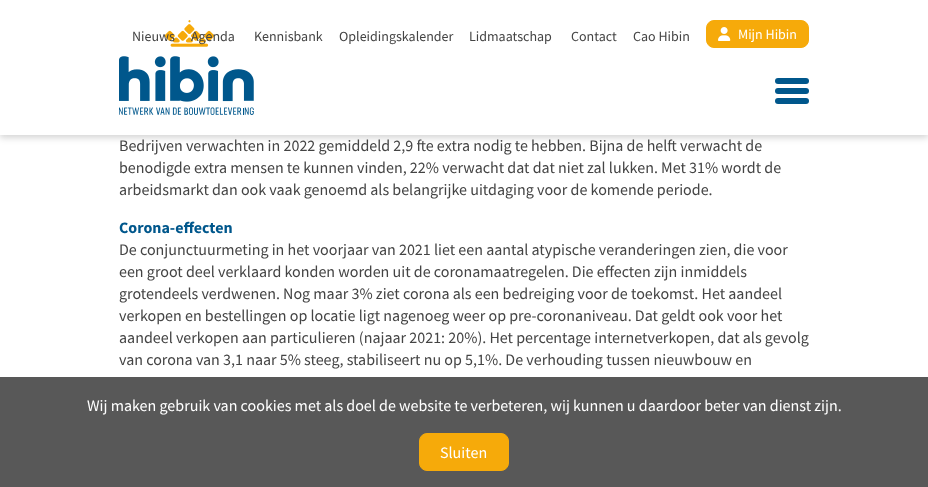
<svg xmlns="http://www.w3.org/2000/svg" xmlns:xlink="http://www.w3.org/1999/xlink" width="928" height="487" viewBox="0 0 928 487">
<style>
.cls-1{font:14px Source Sans Pro;fill:#444444}
.cls-2{font:14px Source Sans Pro;fill:#ffffff}
.cls-3{font:16px Source Sans Pro;fill:#444444}
.cls-4{font:bold 16px Source Sans Pro;fill:#00578c}
.cls-5{font:16px Source Sans Pro;fill:#ffffff}
</style>
<rect width="100%" height="100%" fill="#ffffff"/>
<rect fill="#000000" fill-opacity="0.16" filter="blur(3px)" x="0" y="3" width="928" height="135"/>
<rect fill="#ffffff" x="0" y="0" width="928" height="135"/>
<image xlink:href="image0.png" x="119" y="20" width="135" height="95"/>
<rect fill="#00578c" x="775" y="78" width="34" height="6" rx="3"/>
<rect fill="#00578c" x="775" y="88" width="34" height="6" rx="3"/>
<rect fill="#00578c" x="775" y="98" width="34" height="6" rx="3"/>
<rect fill="#f6aa0a" stroke="#f6aa0a" x="706.5" y="20.5" width="102" height="27" rx="7.5"/>
<image xlink:href="image1.png" x="718" y="27" width="13" height="14"/>
<rect fill="#111111" fill-opacity="0.7" x="0" y="377" width="928" height="110"/>
<rect fill="#f6aa0a" stroke="#f6aa0a" x="419.5" y="433.5" width="89" height="37" rx="7.5"/>
<text class="cls-1" x="132" y="41">Nieuws</text>
<text class="cls-1" x="191" y="41">Agenda</text>
<text class="cls-1" x="254" y="41">Kennisbank</text>
<text class="cls-1" x="339" y="41">Opleidingskalender</text>
<text class="cls-1" x="469" y="41">Lidmaatschap</text>
<text class="cls-1" x="571" y="41">Contact</text>
<text class="cls-1" x="633" y="41">Cao Hibin</text>
<text class="cls-2" x="738" y="39">Mijn Hibin</text>
<text class="cls-3"><tspan x="119" y="151">Bedrijven verwachten in 2022 gemiddeld 2,9 fte extra nodig te hebben. Bijna de helft verwacht de</tspan><tspan x="119" y="173">benodigde extra mensen te kunnen vinden, 22% verwacht dat dat niet zal lukken. Met 31% wordt de</tspan><tspan x="119" y="195">arbeidsmarkt dan ook vaak genoemd als belangrijke uitdaging voor de komende periode.</tspan></text>
<text class="cls-4" x="119" y="233">Corona-effecten</text>
<text class="cls-3"><tspan x="119" y="255">De conjunctuurmeting in het voorjaar van 2021 liet een aantal atypische veranderingen zien, die voor</tspan><tspan x="119" y="277">een groot deel verklaard konden worden uit de coronamaatregelen. Die effecten zijn inmiddels</tspan><tspan x="119" y="299">grotendeels verdwenen. Nog maar 3% ziet corona als een bedreiging voor de toekomst. Het aandeel</tspan><tspan x="119" y="321">verkopen en bestellingen op locatie ligt nagenoeg weer op pre-coronaniveau. Dat geldt ook voor het</tspan><tspan x="119" y="343">aandeel verkopen aan particulieren (najaar 2021: 20%). Het percentage internetverkopen, dat als gevolg</tspan><tspan x="119" y="365">van corona van 3,1 naar 5% steeg, stabiliseert nu op 5,1%. De verhouding tussen nieuwbouw en</tspan></text>
<text class="cls-5" x="87" y="411">Wij maken gebruik van cookies met als doel de website te verbeteren, wij kunnen u daardoor beter van dienst zijn.</text>
<text class="cls-5" x="440" y="458">Sluiten</text>
</svg>
